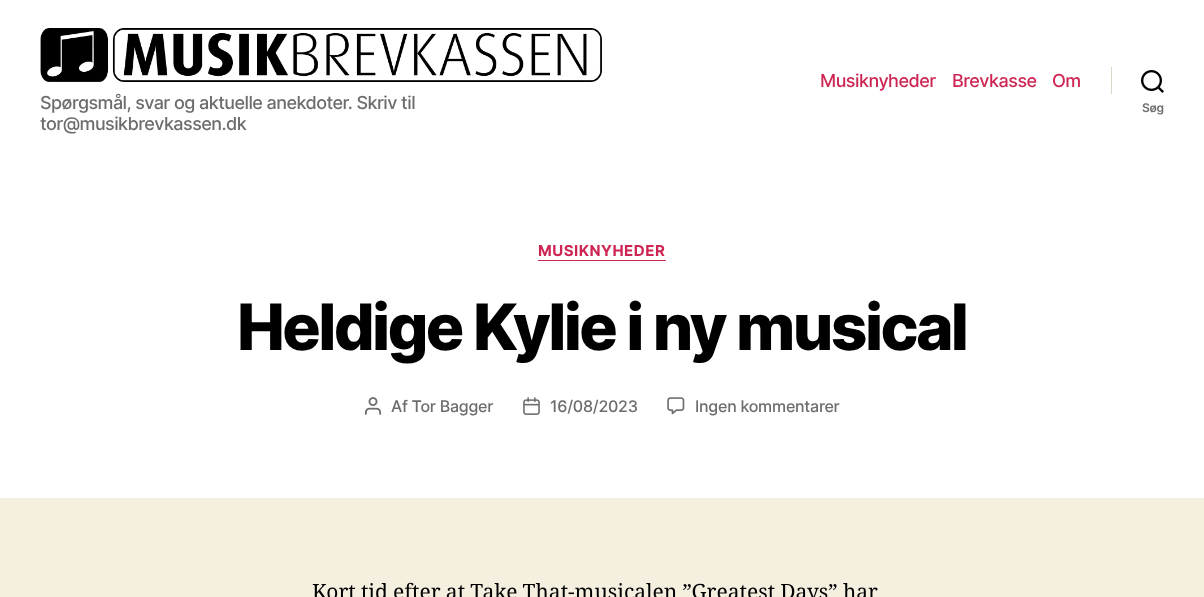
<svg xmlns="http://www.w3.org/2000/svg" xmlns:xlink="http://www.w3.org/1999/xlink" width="1204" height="597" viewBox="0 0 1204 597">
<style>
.cls-1{font:500 18px Inter;letter-spacing:-0.55px;fill:#6d6d6d}
.cls-2{font:500 18px Inter;letter-spacing:-0.5px;fill:#cd2653}
.cls-3{font:600 12px Inter;letter-spacing:-0.25px;fill:#6d6d6d}
.cls-4{font:bold 15px Inter;letter-spacing:0.5px;fill:#cd2653}
.cls-5{font:800 64px Inter;letter-spacing:-2.65px;fill:#000000}
.cls-6{font:500 16px Inter;letter-spacing:-0.25px;fill:#6d6d6d}
.cls-7{font:21px Noto Serif;fill:#000000}
</style>
<rect width="100%" height="100%" fill="#f5efe0"/>
<rect fill="#ffffff" x="0" y="0" width="1204" height="498"/>
<image xlink:href="image0.png" x="40" y="28" width="562" height="54"/>
<rect fill="#dcd7ca" x="1111" y="67" width="1" height="27"/>
<image xlink:href="image1.png" x="1141" y="70" width="23" height="23"/>
<rect fill="#cd2653" x="538" y="260" width="128" height="1"/>
<image xlink:href="image2.png" x="365" y="397" width="16" height="18"/>
<image xlink:href="image3.png" x="523" y="397" width="17" height="18"/>
<image xlink:href="image4.png" x="667" y="397" width="18" height="18"/>
<text class="cls-1"><tspan x="40" y="109">Spørgsmål, svar og aktuelle anekdoter. Skriv til</tspan><tspan x="40" y="130">tor@musikbrevkassen.dk</tspan></text>
<text class="cls-2" x="820" y="87">Musiknyheder</text>
<text class="cls-2" x="952" y="87">Brevkasse</text>
<text class="cls-2" x="1052" y="87">Om</text>
<text class="cls-3" x="1142" y="112">Søg</text>
<text class="cls-4" x="538" y="256">MUSIKNYHEDER</text>
<text class="cls-5" x="237" y="350">Heldige Kylie i ny musical</text>
<text class="cls-6" x="391" y="412">Af Tor Bagger</text>
<text class="cls-6" x="550" y="412">16/08/2023</text>
<text class="cls-6" x="695" y="412">Ingen kommentarer</text>
<text class="cls-7" x="312" y="599" word-spacing="-0.25">Kort tid efter at Take That-musicalen ”Greatest Days” har</text>
</svg>
